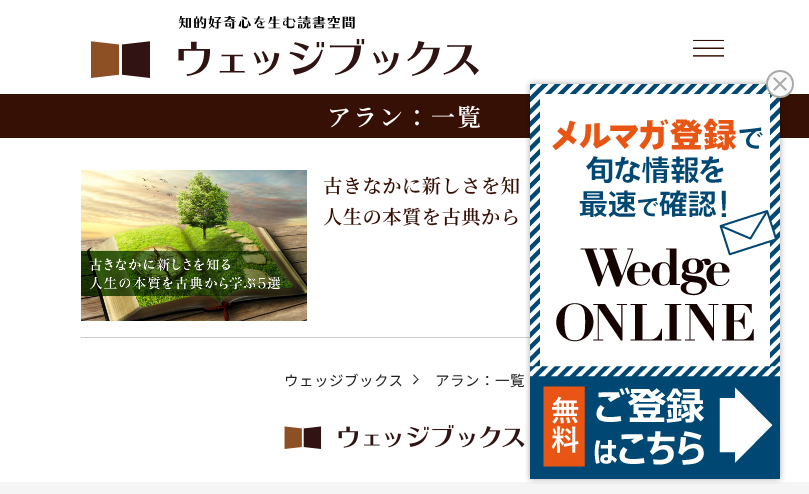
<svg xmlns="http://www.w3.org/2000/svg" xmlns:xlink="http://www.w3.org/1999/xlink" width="809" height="494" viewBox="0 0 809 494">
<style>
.cls-1{font:200 24px Noto Serif JP;letter-spacing:2px;fill:#ffffff}
.cls-2{font:200 19.25px Noto Serif JP;letter-spacing:0.5px;fill:#371005}
.cls-3{font:14.5px Noto Sans CJK JP;letter-spacing:0.5px;fill:#222222}
</style>
<rect width="100%" height="100%" fill="#ffffff"/>
<image xlink:href="image0.png" x="91" y="16" width="388" height="62"/>
<image xlink:href="image1.png" x="693" y="39" width="31" height="18"/>
<rect fill="#371005" x="0" y="94" width="809" height="44"/>
<rect fill="#cccccc" x="81" y="337" width="449" height="1"/>
<image xlink:href="image2.png" x="81" y="170" width="226" height="151"/>
<rect fill="#f5f5f5" x="0" y="482" width="809" height="12"/>
<image xlink:href="image3.png" x="525" y="70" width="269" height="414"/>
<path fill="#222222" d="M413 375L414 374.5L418.5 379.5L418 380Z"/>
<path fill="#222222" d="M413 383.5L418 378.5L418.5 379.5L414 384.5Z"/>
<image xlink:href="image4.png" x="284" y="425" width="241" height="24"/>
<text class="cls-1" x="327" y="126">アラン：一覧</text>
<text class="cls-2"><tspan x="323" y="193">古きなかに新しさを知</tspan><tspan x="323" y="224">人生の本質を古典から</tspan></text>
<text class="cls-3" x="284" y="386">ウェッジブックス</text>
<text class="cls-3" x="435" y="386">アラン：一覧</text>
</svg>
